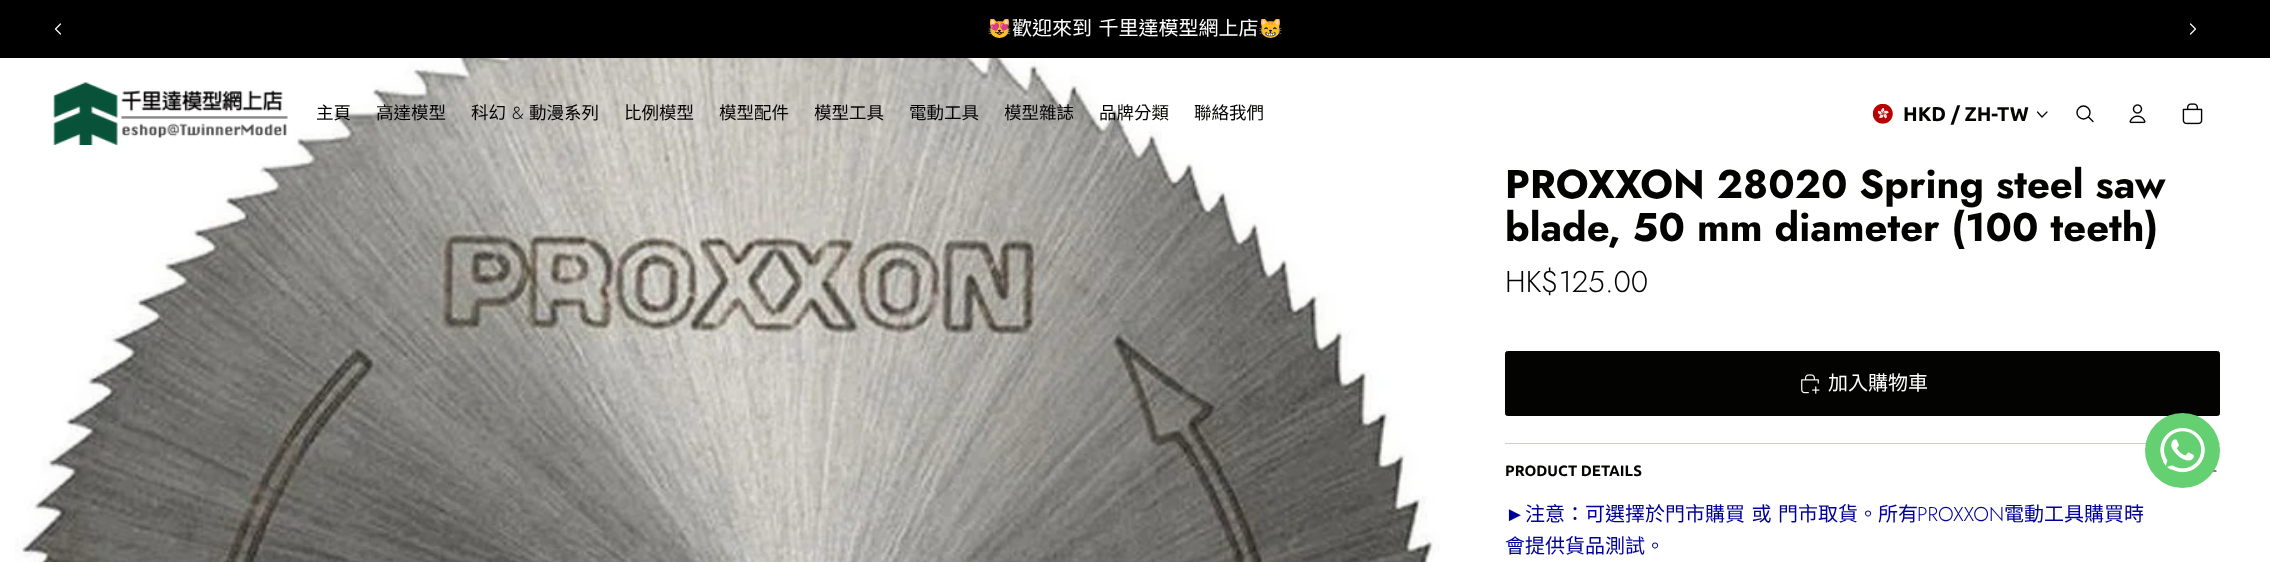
<svg xmlns="http://www.w3.org/2000/svg" xmlns:xlink="http://www.w3.org/1999/xlink" width="2270" height="562" viewBox="0 0 2270 562">
<style>
.cls-1{font:20px Noto Color Emoji;fill:#ffffff}
.cls-2{font:20px Noto Sans CJK TC;fill:#ffffff}
.cls-3{font:17.5px Noto Sans CJK TC;fill:#030302}
.cls-4{font:300 17.5px Jost;fill:#030302}
.cls-5{font:bold 20px Ubuntu;fill:#030302}
.cls-6{font:bold 40px Jost;fill:#030302}
.cls-7{font:300 30px Jost;fill:#030302}
.cls-8{font:bold 15px Ubuntu;fill:#030302}
.cls-9{font:20px Liberation Sans;fill:#000099}
.cls-10{font:20px Noto Sans CJK TC;fill:#000099}
.cls-11{font:300 20px Jost;fill:#000099}
</style>
<defs>
<clipPath id="clip1"><rect x="710" y="19" width="850" height="20"/></clipPath>
</defs>
<rect width="100%" height="100%" fill="#ffffff"/>
<rect fill="#000000" x="0" y="0" width="2270" height="58"/>
<path fill="none" stroke="#ffffff" stroke-width="1.2" stroke-linecap="round" stroke-linejoin="round" d="M60.5 24L55.5 29L60.5 34"/>
<path fill="none" stroke="#ffffff" stroke-width="1.2" stroke-linecap="round" stroke-linejoin="round" d="M2190.5 24L2195.5 29L2190.5 34"/>
<image xlink:href="image4.png" x="14" y="58" width="1426" height="504"/>
<image xlink:href="image0.png" x="53" y="82" width="235" height="63"/>
<image xlink:href="image1.png" x="1873" y="104" width="20" height="20"/>
<path fill="none" stroke="#030302" stroke-width="1.2" stroke-linecap="round" stroke-linejoin="round" d="M2047 112L2042 117L2037.5 112"/>
<circle fill="none" stroke="#030302" stroke-width="1.4" cx="2083.5" cy="112.5" r="6.5"/>
<path fill="none" stroke="#030302" stroke-width="1.4" stroke-linecap="round" stroke-linejoin="round" d="M2088.5 117L2093 121.5"/>
<image xlink:href="image2.png" x="2129" y="104" width="17" height="20"/>
<image xlink:href="image3.png" x="2182" y="103" width="21" height="22"/>
<rect fill="#030302" stroke="#030302" x="1505.5" y="351.5" width="714" height="64" rx="2"/>
<image xlink:href="image5.png" x="1801" y="374" width="19" height="20"/>
<rect fill="#d3cec5" x="1505" y="443" width="715" height="1"/>
<path fill="none" stroke="#030302" stroke-width="1.2" stroke-linecap="round" d="M2216 471H2206"/>
<circle fill="#65d071" cx="2182.5" cy="450.5" r="37.5"/>
<image xlink:href="image6.png" x="2160" y="428" width="45" height="45"/>
<g clip-path="url(#clip1)">
<text class="cls-1" x="987" y="35">😻</text>
<text class="cls-2" x="1012" y="35" word-spacing="2">歡迎來到 千里達模型網上店</text>
<text class="cls-1" x="1258" y="35">😸</text>
</g>
<text class="cls-3" x="316" y="119">主頁</text>
<text class="cls-3" x="376" y="119">高達模型</text>
<text class="cls-3" x="471" y="119">科幻</text>
<text class="cls-4" x="512" y="119">&amp;</text>
<text class="cls-3" x="529" y="119">動漫系列</text>
<text class="cls-3" x="624" y="119">比例模型</text>
<text class="cls-3" x="719" y="119">模型配件</text>
<text class="cls-3" x="814" y="119">模型工具</text>
<text class="cls-3" x="909" y="119">電動工具</text>
<text class="cls-3" x="1004" y="119">模型雜誌</text>
<text class="cls-3" x="1099" y="119">品牌分類</text>
<text class="cls-3" x="1194" y="119">聯絡我們</text>
<text class="cls-5" x="1903" y="121">HKD / ZH-TW</text>
<text class="cls-6"><tspan x="1505" y="198">PROXXON 28020 Spring steel saw</tspan><tspan x="1505" y="241">blade, 50 mm diameter (100 teeth)</tspan></text>
<text class="cls-7" x="1505" y="292">HK$125.00</text>
<text class="cls-2" x="1828" y="390">加入購物車</text>
<text class="cls-8" x="1505" y="476">PRODUCT DETAILS</text>
<text class="cls-9" x="1505" y="521">►</text>
<text class="cls-10" x="1525" y="521" word-spacing="2">注意：可選擇於門市購買 或 門市取貨。所有</text>
<text class="cls-11" x="1917" y="521">PROXXON</text>
<text class="cls-10" x="2004" y="521">電動工具購買時</text>
<text class="cls-10" x="1505" y="553">會提供貨品測試。</text>
</svg>
